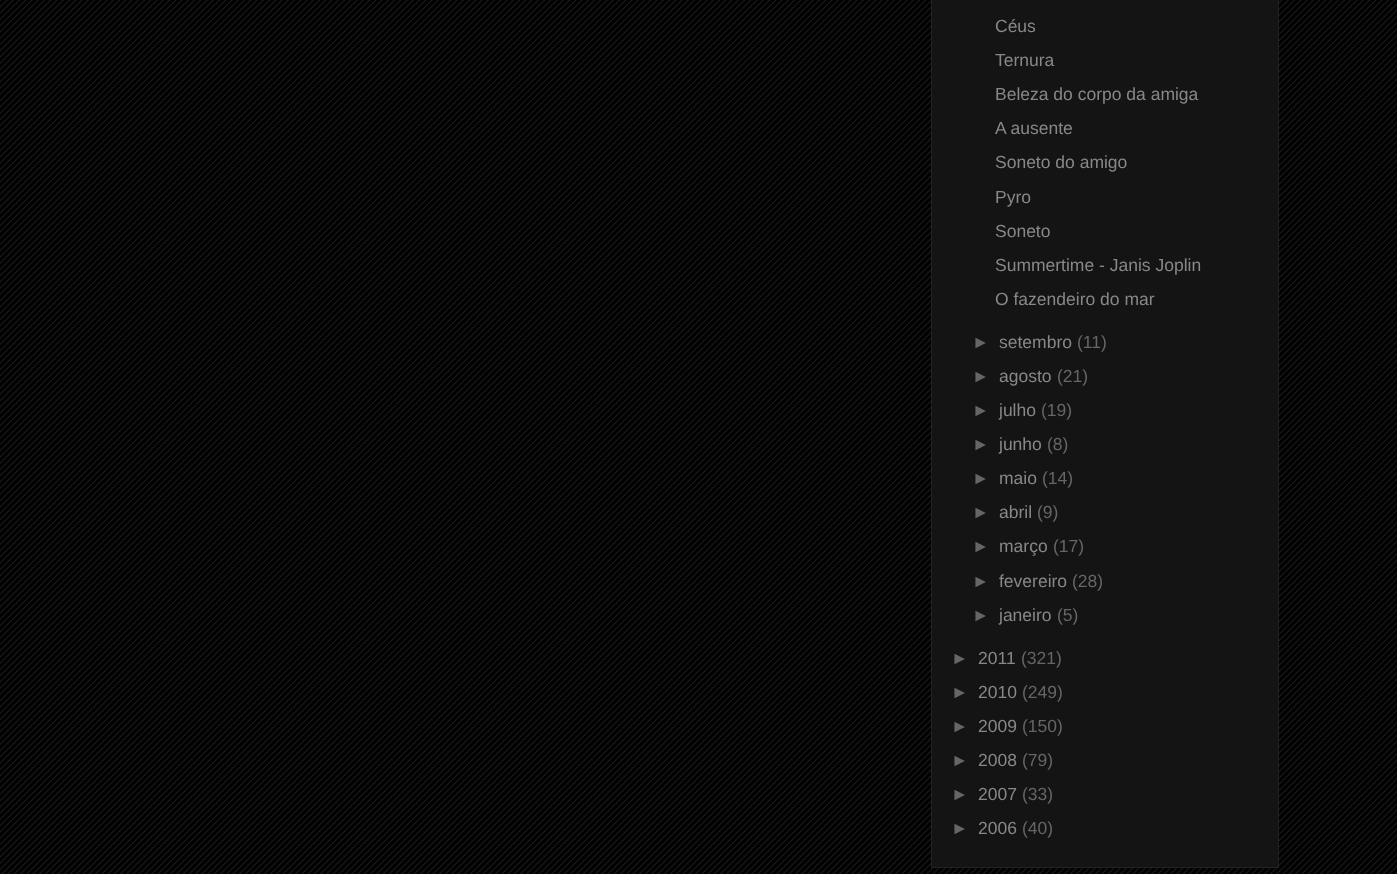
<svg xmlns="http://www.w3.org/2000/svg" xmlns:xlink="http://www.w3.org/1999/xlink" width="1397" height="874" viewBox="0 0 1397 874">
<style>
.cls-1{font:17.5px Liberation Sans;fill:#888888}
.cls-2{font:17.5px Liberation Sans;fill:#666666}
</style>
<rect width="100%" height="100%" fill="#000000"/>
<image xlink:href="image0.png" x="0" y="0" width="1397" height="874"/>
<rect fill="#141414" stroke="#222222" x="931.5" y="-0.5" width="347" height="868"/>
<text class="cls-1"><tspan x="995" y="32">Céus</tspan><tspan x="995" y="66">Ternura</tspan><tspan x="995" y="100">Beleza do corpo da amiga</tspan><tspan x="995" y="134">A ausente</tspan><tspan x="995" y="168">Soneto do amigo</tspan></text>
<text class="cls-1"><tspan x="995" y="203">Pyro</tspan><tspan x="995" y="237">Soneto</tspan><tspan x="995" y="271">Summertime - Janis Joplin</tspan><tspan x="995" y="305">O fazendeiro do mar</tspan></text>
<text class="cls-2" x="972" y="348">►</text>
<text class="cls-1" x="999" y="348">setembro</text>
<text class="cls-2" x="1077" y="348">(11)</text>
<text class="cls-2" x="972" y="382">►</text>
<text class="cls-1" x="999" y="382">agosto</text>
<text class="cls-2" x="1057" y="382">(21)</text>
<text class="cls-2" x="972" y="416">►</text>
<text class="cls-1" x="999" y="416">julho</text>
<text class="cls-2" x="1041" y="416">(19)</text>
<text class="cls-2" x="972" y="450">►</text>
<text class="cls-1" x="999" y="450">junho</text>
<text class="cls-2" x="1047" y="450">(8)</text>
<text class="cls-2" x="972" y="484">►</text>
<text class="cls-1" x="999" y="484">maio</text>
<text class="cls-2" x="1042" y="484">(14)</text>
<text class="cls-2" x="972" y="518">►</text>
<text class="cls-1" x="999" y="518">abril</text>
<text class="cls-2" x="1037" y="518">(9)</text>
<text class="cls-2" x="972" y="552">►</text>
<text class="cls-1" x="999" y="552">março</text>
<text class="cls-2" x="1053" y="552">(17)</text>
<text class="cls-2" x="972" y="587">►</text>
<text class="cls-1" x="999" y="587">fevereiro</text>
<text class="cls-2" x="1072" y="587">(28)</text>
<text class="cls-2" x="972" y="621">►</text>
<text class="cls-1" x="999" y="621">janeiro</text>
<text class="cls-2" x="1057" y="621">(5)</text>
<text class="cls-2" x="951" y="664">►</text>
<text class="cls-1" x="978" y="664">2011</text>
<text class="cls-2" x="1021" y="664">(321)</text>
<text class="cls-2" x="951" y="698">►</text>
<text class="cls-1" x="978" y="698">2010</text>
<text class="cls-2" x="1022" y="698">(249)</text>
<text class="cls-2" x="951" y="732">►</text>
<text class="cls-1" x="978" y="732">2009</text>
<text class="cls-2" x="1022" y="732">(150)</text>
<text class="cls-2" x="951" y="766">►</text>
<text class="cls-1" x="978" y="766">2008</text>
<text class="cls-2" x="1022" y="766">(79)</text>
<text class="cls-2" x="951" y="800">►</text>
<text class="cls-1" x="978" y="800">2007</text>
<text class="cls-2" x="1022" y="800">(33)</text>
<text class="cls-2" x="951" y="834">►</text>
<text class="cls-1" x="978" y="834">2006</text>
<text class="cls-2" x="1022" y="834">(40)</text>
</svg>
